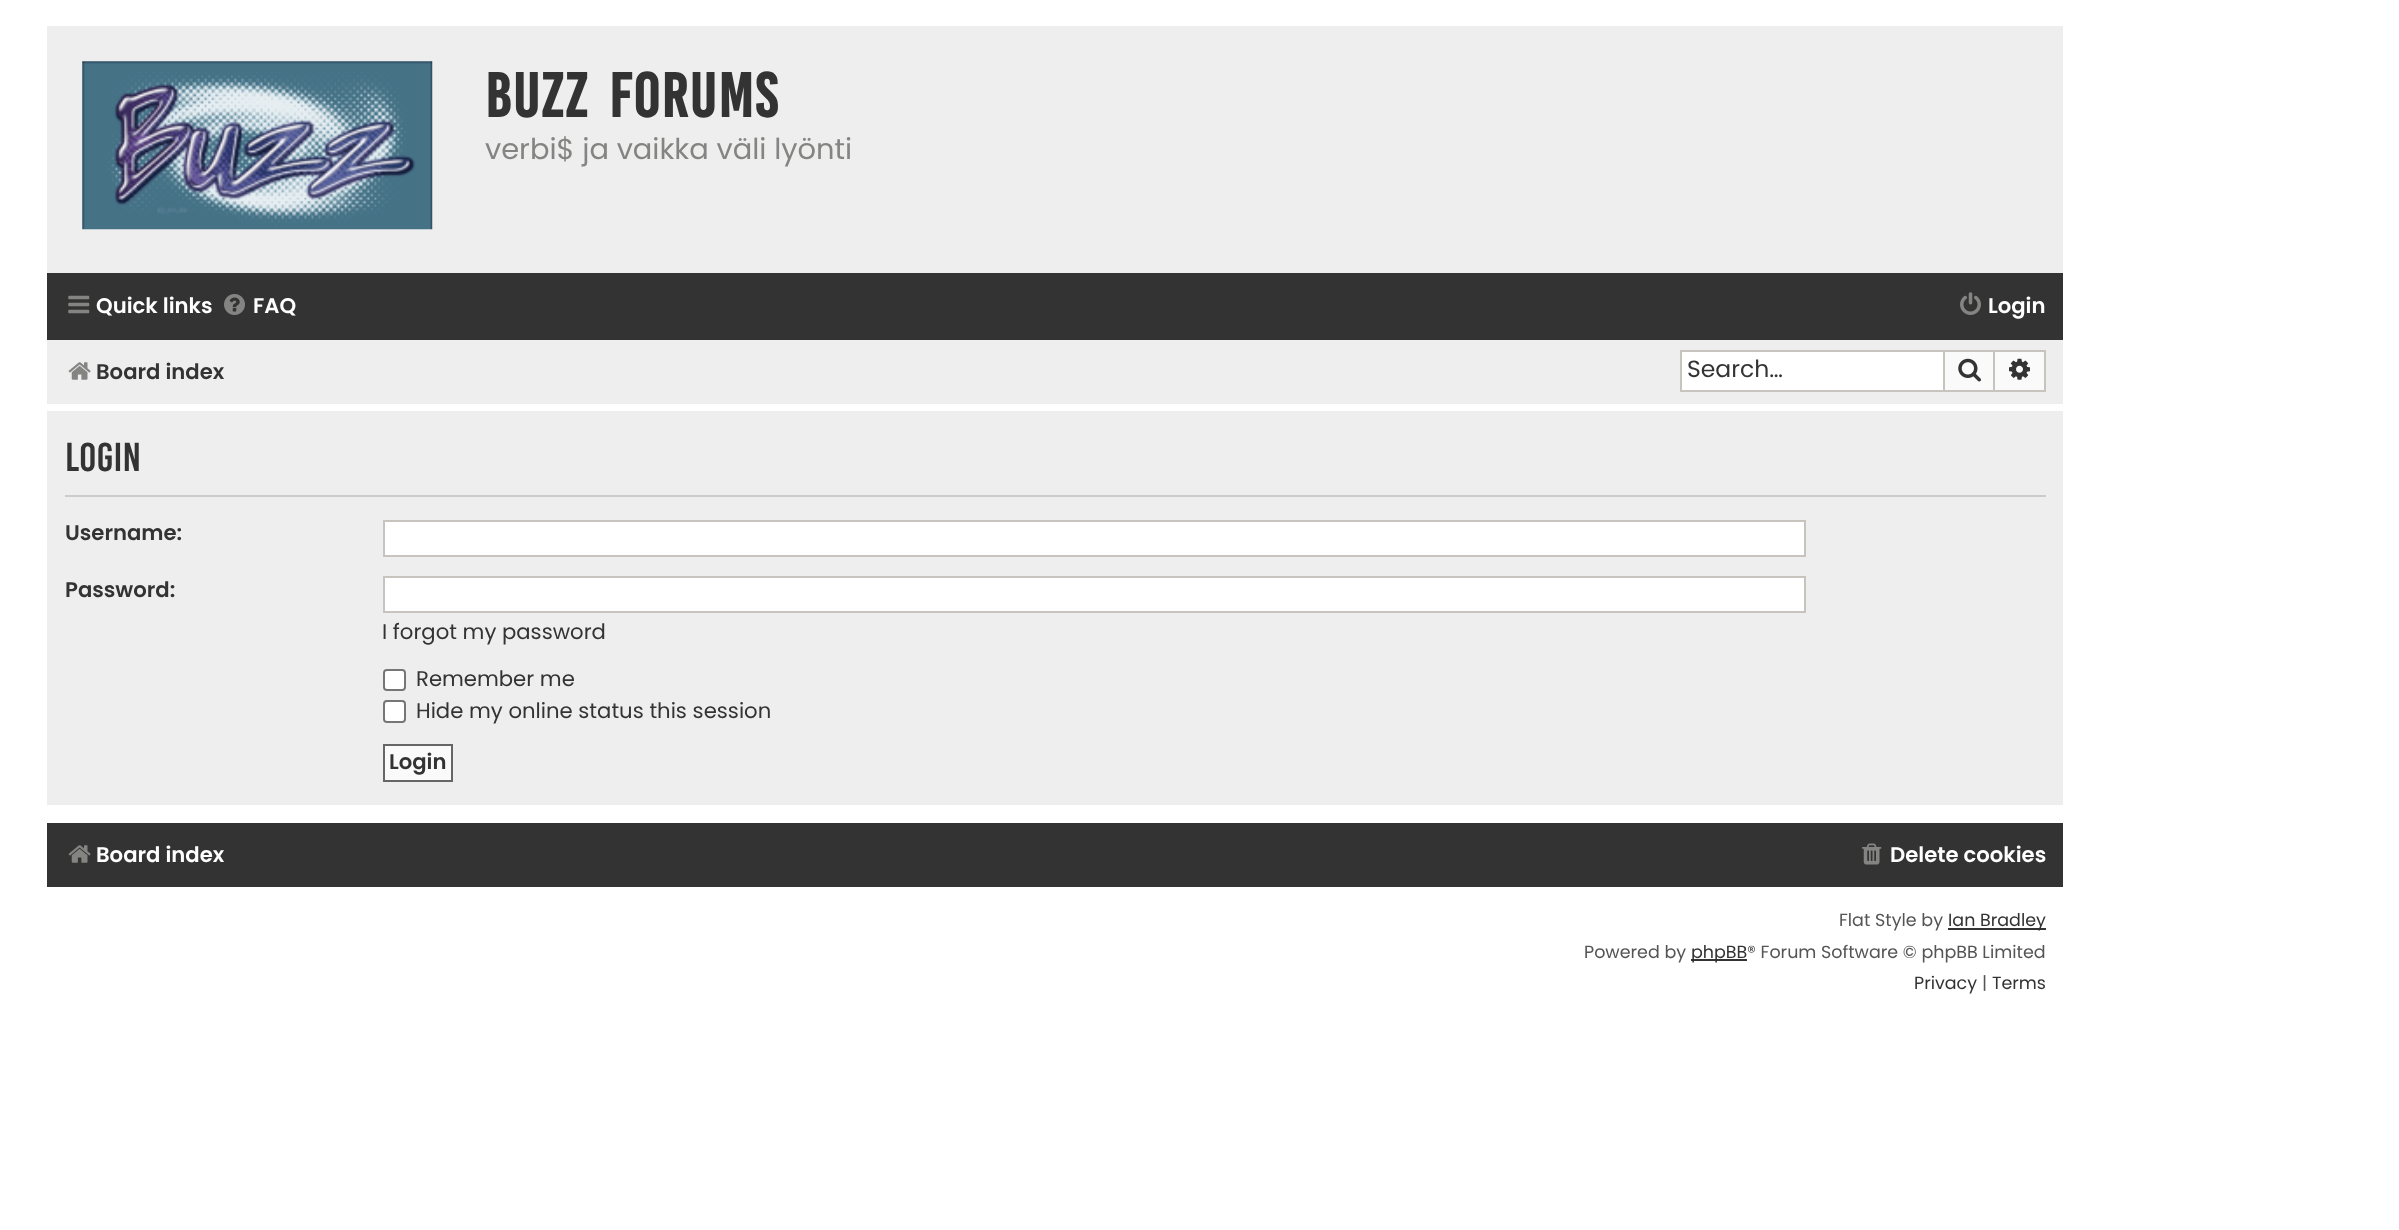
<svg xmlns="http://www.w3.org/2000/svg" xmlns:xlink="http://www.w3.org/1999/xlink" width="2399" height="1230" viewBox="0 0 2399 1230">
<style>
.cls-1{font:bold 48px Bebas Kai;letter-spacing:1.75px;fill:#333333}
.cls-2{font:28.9px Poppins;fill:#848482}
.cls-3{font:600 21.2px Poppins;fill:#ffffff}
.cls-4{font:600 21.2px Poppins;fill:#333333}
.cls-5{font:23.5px Poppins;fill:#333333}
.cls-6{font:31px Bebas Kai;fill:#333333}
.cls-7{font:21.2px Poppins;fill:#333333}
.cls-8{font:17.5px Poppins;fill:#555555}
.cls-9{font:17.5px Poppins;fill:#333333}
</style>
<rect width="100%" height="100%" fill="#ffffff"/>
<rect fill="#eeeeee" x="47" y="26" width="2016" height="247"/>
<image xlink:href="image0.png" x="82" y="61" width="351" height="169"/>
<rect fill="#333333" x="47" y="273" width="2016" height="67"/>
<image xlink:href="image1.png" x="68" y="295" width="22" height="19"/>
<image xlink:href="image2.png" x="224" y="294" width="21" height="21"/>
<image xlink:href="image3.png" x="1960" y="292" width="21" height="23"/>
<rect fill="#eeeeee" x="47" y="340" width="2016" height="64"/>
<image xlink:href="image4.png" x="68" y="362" width="23" height="18"/>
<rect fill="#ffffff" x="1682" y="352" width="261" height="38"/>
<rect fill="#c7c3bf" x="1680" y="350" width="263" height="2"/>
<rect fill="#c7c3bf" x="1680" y="390" width="263" height="2"/>
<rect fill="#c7c3bf" x="1680" y="350" width="2" height="42"/>
<rect fill="#fafafa" stroke="#c7c3bf" stroke-width="2" x="1944" y="351" width="50" height="40"/>
<image xlink:href="image5.png" x="1958" y="358" width="23" height="24"/>
<rect fill="#fafafa" x="1995" y="352" width="49" height="38"/>
<rect fill="#c7c3bf" x="1995" y="350" width="51" height="2"/>
<rect fill="#c7c3bf" x="2044" y="350" width="2" height="42"/>
<rect fill="#c7c3bf" x="1995" y="390" width="51" height="2"/>
<image xlink:href="image6.png" x="2009" y="358" width="21" height="22"/>
<rect fill="#eeeeee" x="47" y="411" width="2016" height="394"/>
<rect fill="#cccccc" x="65" y="495" width="1981" height="2"/>
<rect fill="#ffffff" stroke="#c7c3bf" stroke-width="2" x="384" y="521" width="1421" height="35"/>
<rect fill="#ffffff" stroke="#c7c3bf" stroke-width="2" x="384" y="577" width="1421" height="35"/>
<rect fill="#ffffff" stroke="#767676" stroke-width="2" x="384" y="670" width="21" height="20" rx="3"/>
<rect fill="#ffffff" stroke="#767676" stroke-width="2" x="384" y="701" width="21" height="21" rx="3"/>
<rect fill="#fafafa" stroke="#666666" stroke-width="2" x="384" y="745" width="68" height="36"/>
<rect fill="#333333" x="47" y="823" width="2016" height="64"/>
<image xlink:href="image7.png" x="68" y="845" width="23" height="18"/>
<image xlink:href="image8.png" x="1862" y="843" width="20" height="22"/>
<rect fill="#333333" x="1948" y="928" width="98" height="2"/>
<rect fill="#333333" x="1691" y="959" width="56" height="2"/>
<text class="cls-1" x="485" y="117" word-spacing="7">buzz forums</text>
<text class="cls-2" x="485" y="159">verbi$ ja vaikka väli lyönti</text>
<text class="cls-3" x="96" y="313">Quick links</text>
<text class="cls-3" x="253" y="313">FAQ</text>
<text class="cls-3" x="1988" y="313">Login</text>
<text class="cls-4" x="96" y="379">Board index</text>
<text class="cls-5" x="1687" y="377">Search…</text>
<text class="cls-6" x="65" y="471">Login</text>
<text class="cls-4" x="65" y="540">Username:</text>
<text class="cls-4" x="65" y="597">Password:</text>
<text class="cls-7" x="382" y="639">I forgot my password</text>
<text class="cls-7"><tspan x="416" y="686">Remember me</tspan><tspan x="416" y="718">Hide my online status this session</tspan></text>
<text class="cls-4" x="389" y="769">Login</text>
<text class="cls-3" x="96" y="862">Board index</text>
<text class="cls-3" x="1890" y="862">Delete cookies</text>
<text class="cls-8" x="1839" y="926">Flat Style by</text>
<text class="cls-9" x="1948" y="926">Ian Bradley</text>
<text class="cls-8" x="1584" y="958">Powered by</text>
<text class="cls-9" x="1691" y="958">phpBB</text>
<text class="cls-8" x="1747" y="958">® Forum Software © phpBB Limited</text>
<text class="cls-9" x="1914" y="989">Privacy</text>
<text class="cls-8" x="1982" y="989">|</text>
<text class="cls-9" x="1992" y="989">Terms</text>
</svg>
